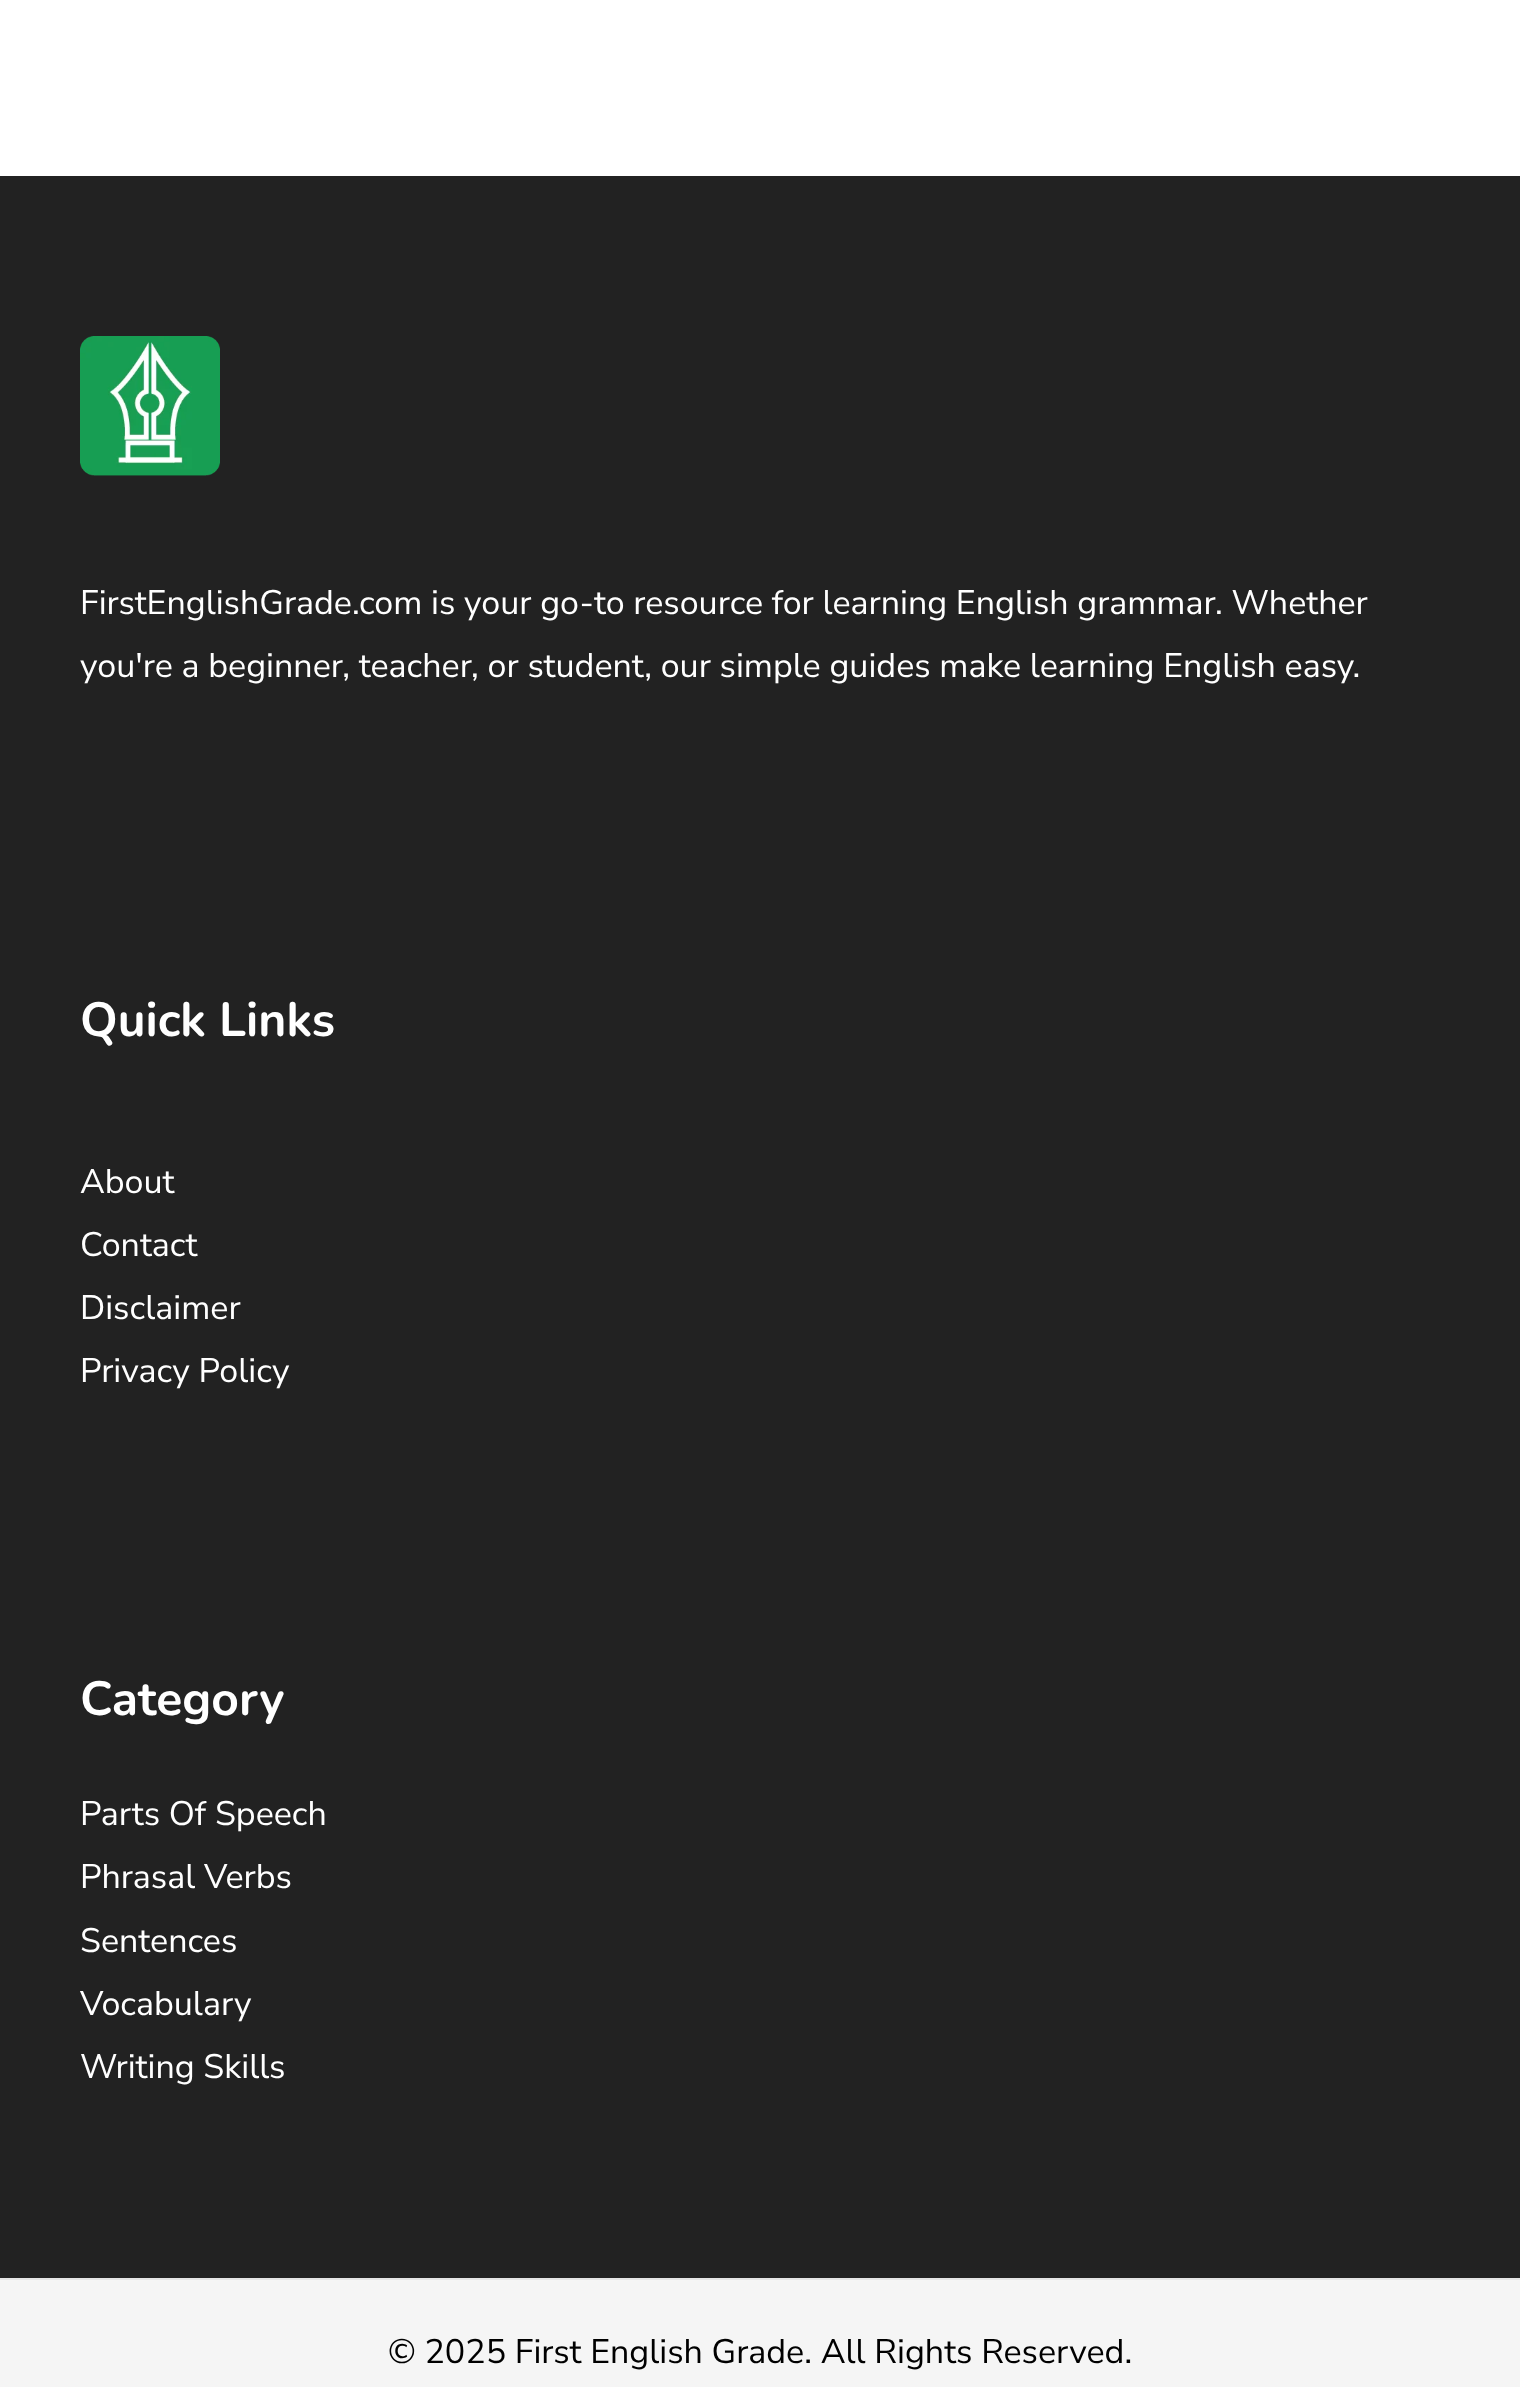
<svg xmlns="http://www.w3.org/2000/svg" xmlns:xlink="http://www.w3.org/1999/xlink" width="1520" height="2387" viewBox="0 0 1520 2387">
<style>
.cls-1{font:34px Nunito Sans;fill:#ffffff}
.cls-2{font:bold 48px Nunito;fill:#ffffff}
.cls-3{font:34px Nunito Sans;fill:#000000}
</style>
<rect width="100%" height="100%" fill="#ffffff"/>
<rect fill="#222222" x="0" y="176" width="1520" height="2102"/>
<image xlink:href="image0.png" x="80" y="336" width="140" height="140"/>
<rect fill="#f5f5f5" x="0" y="2280" width="1520" height="107"/>
<rect fill="#e5e5e5" x="0" y="2278" width="1520" height="2"/>
<text class="cls-1"><tspan x="80" y="614">FirstEnglishGrade.com is your go-to resource for learning English grammar. Whether</tspan><tspan x="80" y="677">you're a beginner, teacher, or student, our simple guides make learning English easy.</tspan></text>
<text class="cls-2" x="80" y="1036">Quick Links</text>
<text class="cls-1"><tspan x="80" y="1193">About</tspan><tspan x="80" y="1256">Contact</tspan><tspan x="80" y="1319">Disclaimer</tspan><tspan x="80" y="1382">Privacy Policy</tspan></text>
<text class="cls-2" x="80" y="1715">Category</text>
<text class="cls-1"><tspan x="80" y="1825">Parts Of Speech</tspan><tspan x="80" y="1888">Phrasal Verbs</tspan><tspan x="80" y="1952">Sentences</tspan><tspan x="80" y="2015">Vocabulary</tspan><tspan x="80" y="2078">Writing Skills</tspan></text>
<text class="cls-3" x="388" y="2363">© 2025 First English Grade. All Rights Reserved.</text>
</svg>
